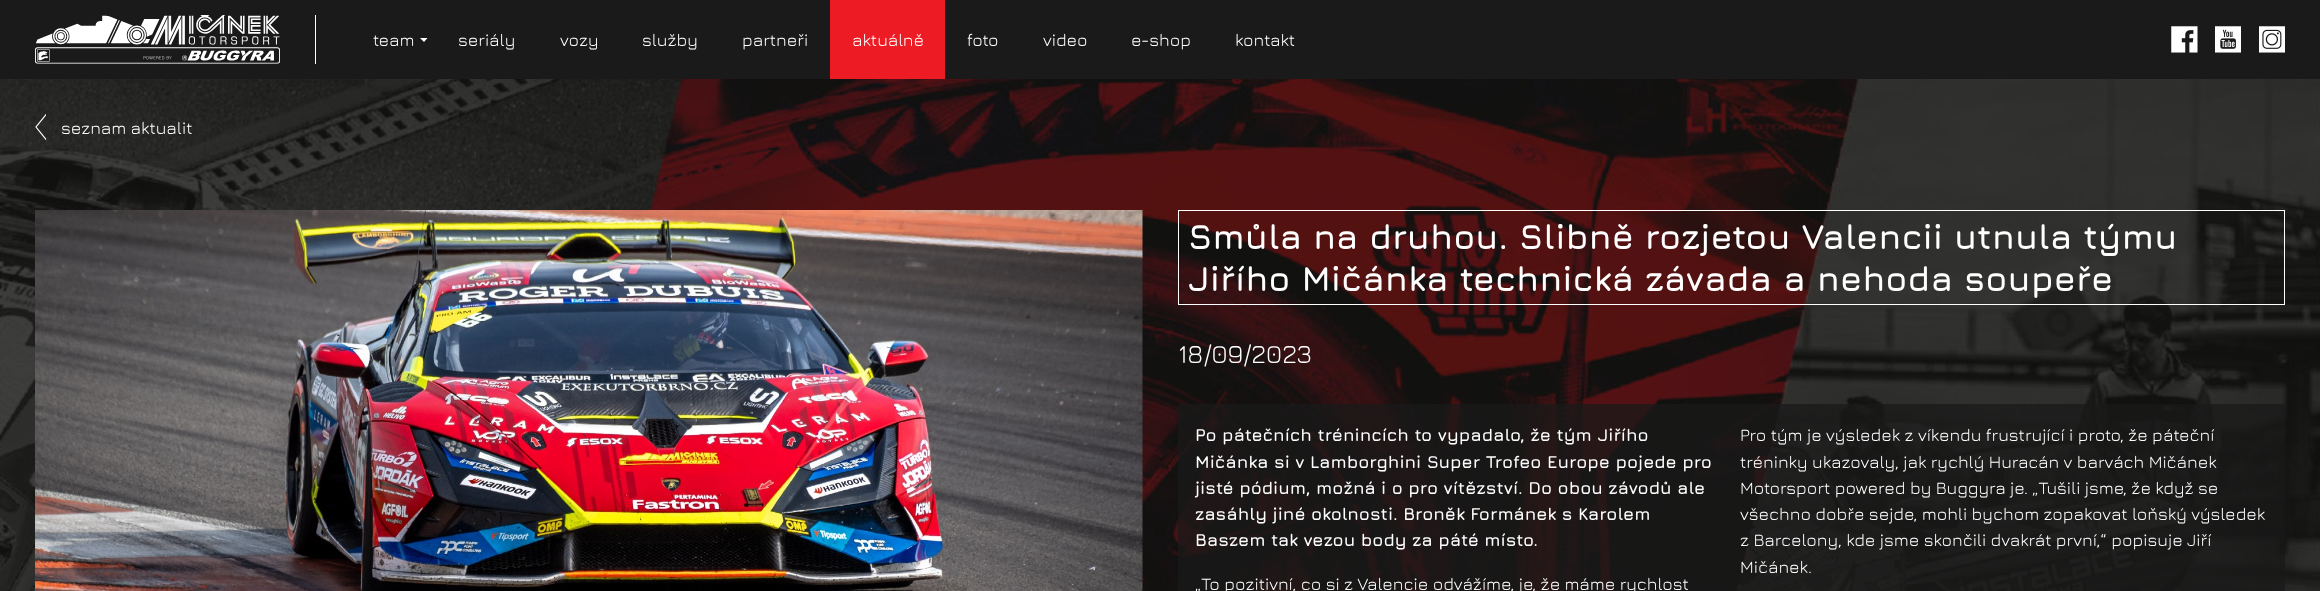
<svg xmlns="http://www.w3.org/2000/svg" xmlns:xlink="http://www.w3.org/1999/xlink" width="2320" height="591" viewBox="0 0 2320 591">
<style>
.cls-1{font:17.5px Jura;fill:#ffffff}
.cls-2{font:bold 35px Jura;fill:#ffffff}
.cls-3{font:26.25px Jura;fill:#ffffff}
.cls-4{font:bold 17.5px Jura;fill:#ffffff}
</style>
<defs>
<clipPath id="clip1"><rect x="35" y="114" width="11" height="26"/></clipPath>
</defs>
<rect width="100%" height="100%" fill="#ffffff"/>
<rect fill="#1a1a1a" x="0" y="0" width="2320" height="79"/>
<rect fill="#ffffff" x="315" y="15" width="1" height="49"/>
<image xlink:href="image0.png" x="35" y="15" width="245" height="49"/>
<path fill="#ffffff" d="M420 38H427.5L424 42Z"/>
<rect fill="#ed1b24" x="830" y="0" width="115" height="79"/>
<image xlink:href="image1.png" x="2171" y="26" width="27" height="27"/>
<image xlink:href="image2.png" x="2215" y="26" width="26" height="27"/>
<image xlink:href="image3.png" x="2259" y="26" width="26" height="27"/>
<image xlink:href="image4.png" x="0" y="79" width="2320" height="512"/>
<g clip-path="url(#clip1)">
<path fill="none" stroke="#ffffff" stroke-width="1.2" stroke-linecap="round" d="M46 114.5L36 127L46 139.5"/>
</g>
<image xlink:href="image5.png" x="35" y="210" width="1108" height="381"/>
<rect fill="none" stroke="#ffffff" x="1178.5" y="210.5" width="1106" height="94"/>
<rect fill="#1a1a1a" fill-opacity="0.75" x="1178" y="404" width="1107" height="187"/>
<text class="cls-1" x="373" y="46">team</text>
<text class="cls-1" x="458" y="46">seriály</text>
<text class="cls-1" x="560" y="46">vozy</text>
<text class="cls-1" x="642" y="46">služby</text>
<text class="cls-1" x="742" y="46">partneři</text>
<text class="cls-1" x="852" y="46">aktuálně</text>
<text class="cls-1" x="967" y="46">foto</text>
<text class="cls-1" x="1043" y="46">video</text>
<text class="cls-1" x="1131" y="46">e-shop</text>
<text class="cls-1" x="1235" y="46">kontakt</text>
<text class="cls-1" x="61" y="134">seznam aktualit</text>
<text class="cls-2"><tspan x="1188" y="249">Smůla na druhou. Slibně rozjetou Valencii utnula týmu</tspan><tspan x="1188" y="291">Jiřího Mičánka technická závada a nehoda soupeře</tspan></text>
<text class="cls-3" x="1178" y="363">18/09/2023</text>
<text class="cls-4"><tspan x="1195" y="441">Po pátečních trénincích to vypadalo, že tým Jiřího</tspan><tspan x="1195" y="468">Mičánka si v Lamborghini Super Trofeo Europe pojede pro</tspan><tspan x="1195" y="494">jisté pódium, možná i o pro vítězství. Do obou závodů ale</tspan><tspan x="1195" y="520">zasáhly jiné okolnosti. Broněk Formánek s Karolem</tspan><tspan x="1195" y="546">Baszem tak vezou body za páté místo.</tspan></text>
<text class="cls-1"><tspan x="1740" y="441">Pro tým je výsledek z víkendu frustrující i proto, že páteční</tspan><tspan x="1740" y="468">tréninky ukazovaly, jak rychlý Huracán v barvách Mičánek</tspan><tspan x="1740" y="494">Motorsport powered by Buggyra je. „Tušili jsme, že když se</tspan><tspan x="1740" y="520">všechno dobře sejde, mohli bychom zopakovat loňský výsledek</tspan><tspan x="1740" y="546">z Barcelony, kde jsme skončili dvakrát první,“ popisuje Jiří</tspan><tspan x="1740" y="573">Mičánek.</tspan></text>
<text class="cls-1" x="1195" y="590">„To pozitivní, co si z Valencie odvážíme, je, že máme rychlost</text>
</svg>
